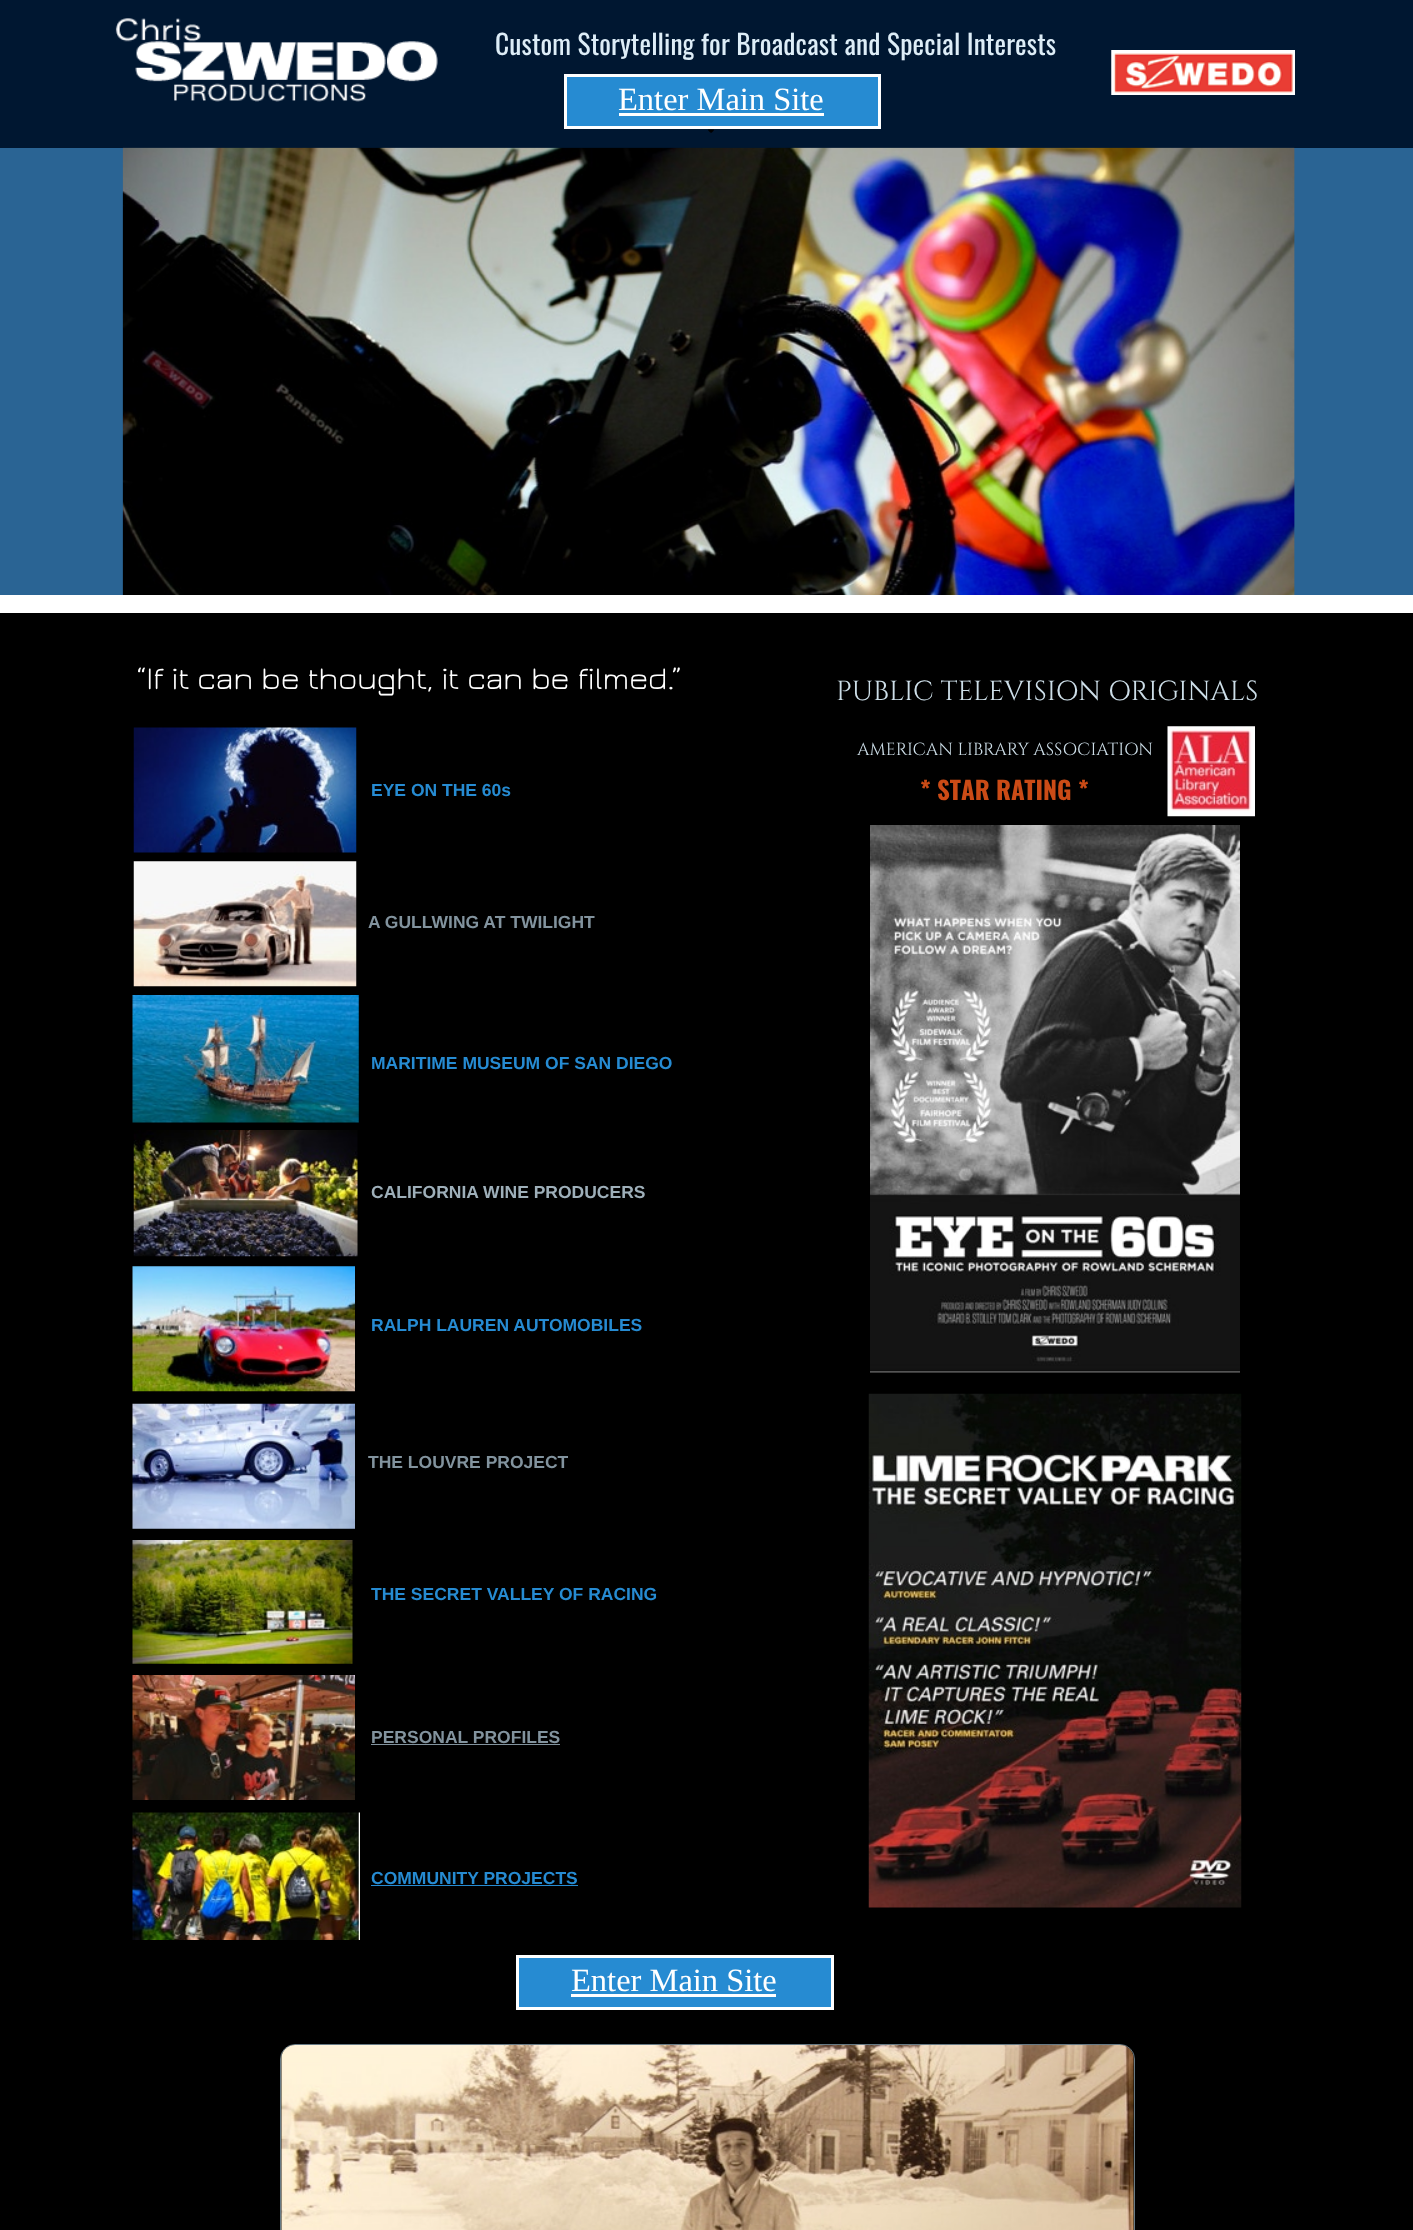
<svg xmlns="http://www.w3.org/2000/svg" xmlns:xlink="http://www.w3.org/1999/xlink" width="1413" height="2230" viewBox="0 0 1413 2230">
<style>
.cls-1{font:27.5px Oswald;letter-spacing:0.12px;fill:#ddedf7}
.cls-2{font:32.5px Liberation Serif;fill:#ffffff}
.cls-3{font:32.5px Jura;fill:#ffffff}
.cls-4{font:bold 17.5px Liberation Sans;fill:#268bd2}
.cls-5{font:bold 17.5px Liberation Sans;fill:#9eafb9}
.cls-6{font:bold 17.5px Liberation Sans;fill:#82939e}
.cls-7{font:27.5px Cinzel;fill:#cddee8}
.cls-8{font:17.5px Cinzel;fill:#cddee8}
.cls-9{font:bold 25px Oswald;fill:#cb4b16}
</style>
<rect width="100%" height="100%" fill="#2a6494"/>
<rect fill="#001731" x="0" y="0" width="1413" height="148"/>
<image xlink:href="image0.png" x="115" y="18" width="323" height="84"/>
<rect fill="#268bd2" stroke="#ffffff" stroke-width="3" x="565.5" y="75.5" width="314" height="52"/>
<rect fill="#ffffff" x="619" y="113" width="205" height="3"/>
<image xlink:href="image1.png" x="708" y="129" width="6" height="4"/>
<image xlink:href="image2.png" x="1111" y="50" width="184" height="45"/>
<image xlink:href="image3.png" x="122" y="147" width="1173" height="448"/>
<rect fill="#ffffff" x="0" y="595" width="1413" height="18"/>
<rect fill="#000000" x="0" y="613" width="1413" height="1617"/>
<image xlink:href="image4.png" x="133" y="727" width="224" height="126"/>
<image xlink:href="image5.png" x="133" y="861" width="224" height="126"/>
<image xlink:href="image6.png" x="133" y="1130" width="225" height="127"/>
<rect fill="#82939e" x="371" y="1744" width="189" height="1"/>
<rect fill="#268bd2" x="371" y="1885" width="207" height="1"/>
<image xlink:href="image7.png" x="1167" y="726" width="88" height="91"/>
<image xlink:href="image8.png" x="868" y="1393" width="374" height="515"/>
<image xlink:href="image9.png" x="132" y="995" width="227" height="128"/>
<image xlink:href="image10.png" x="132" y="1266" width="223" height="126"/>
<image xlink:href="image11.png" x="132" y="1403" width="223" height="126"/>
<image xlink:href="image12.png" x="132" y="1540" width="221" height="124"/>
<image xlink:href="image13.png" x="132" y="1675" width="223" height="125"/>
<image xlink:href="image14.png" x="132" y="1812" width="228" height="128"/>
<image xlink:href="image15.png" x="870" y="825" width="370" height="548"/>
<rect fill="#268bd2" stroke="#ffffff" stroke-width="3" x="517.5" y="1956.5" width="315" height="52"/>
<rect fill="#ffffff" x="571" y="1994" width="205" height="3"/>
<rect fill="none" stroke="#677a85" x="280.5" y="2044.5" width="854" height="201" rx="14.5"/>
<image xlink:href="image16.png" x="281" y="2045" width="853" height="185"/>
<text class="cls-1" x="495" y="55">Custom Storytelling for Broadcast and Special Interests</text>
<text class="cls-2" x="618" y="110">Enter Main Site</text>
<text class="cls-3" x="136" y="689">“If it can be thought, it can be filmed.”</text>
<text class="cls-4" x="371" y="796">EYE ON THE 60s</text>
<text class="cls-5" x="371" y="1198">CALIFORNIA WINE PRODUCERS</text>
<text class="cls-6" x="368" y="1468">THE LOUVRE PROJECT</text>
<text class="cls-6" x="371" y="1743">PERSONAL PROFILES</text>
<text class="cls-4" x="371" y="1884">COMMUNITY PROJECTS</text>
<text class="cls-7" x="836" y="700">PUBLIC TELEVISION ORIGINALS</text>
<text class="cls-8" x="857" y="755">AMERICAN LIBRARY ASSOCIATION</text>
<text class="cls-9" x="920" y="800">* STAR RATING *</text>
<text class="cls-6" x="368" y="928">A GULLWING AT TWILIGHT</text>
<text class="cls-4" x="371" y="1069">MARITIME MUSEUM OF SAN DIEGO</text>
<text class="cls-4" x="371" y="1331">RALPH LAUREN AUTOMOBILES</text>
<text class="cls-4" x="371" y="1600">THE SECRET VALLEY OF RACING</text>
<text class="cls-2" x="571" y="1991">Enter Main Site</text>
</svg>
